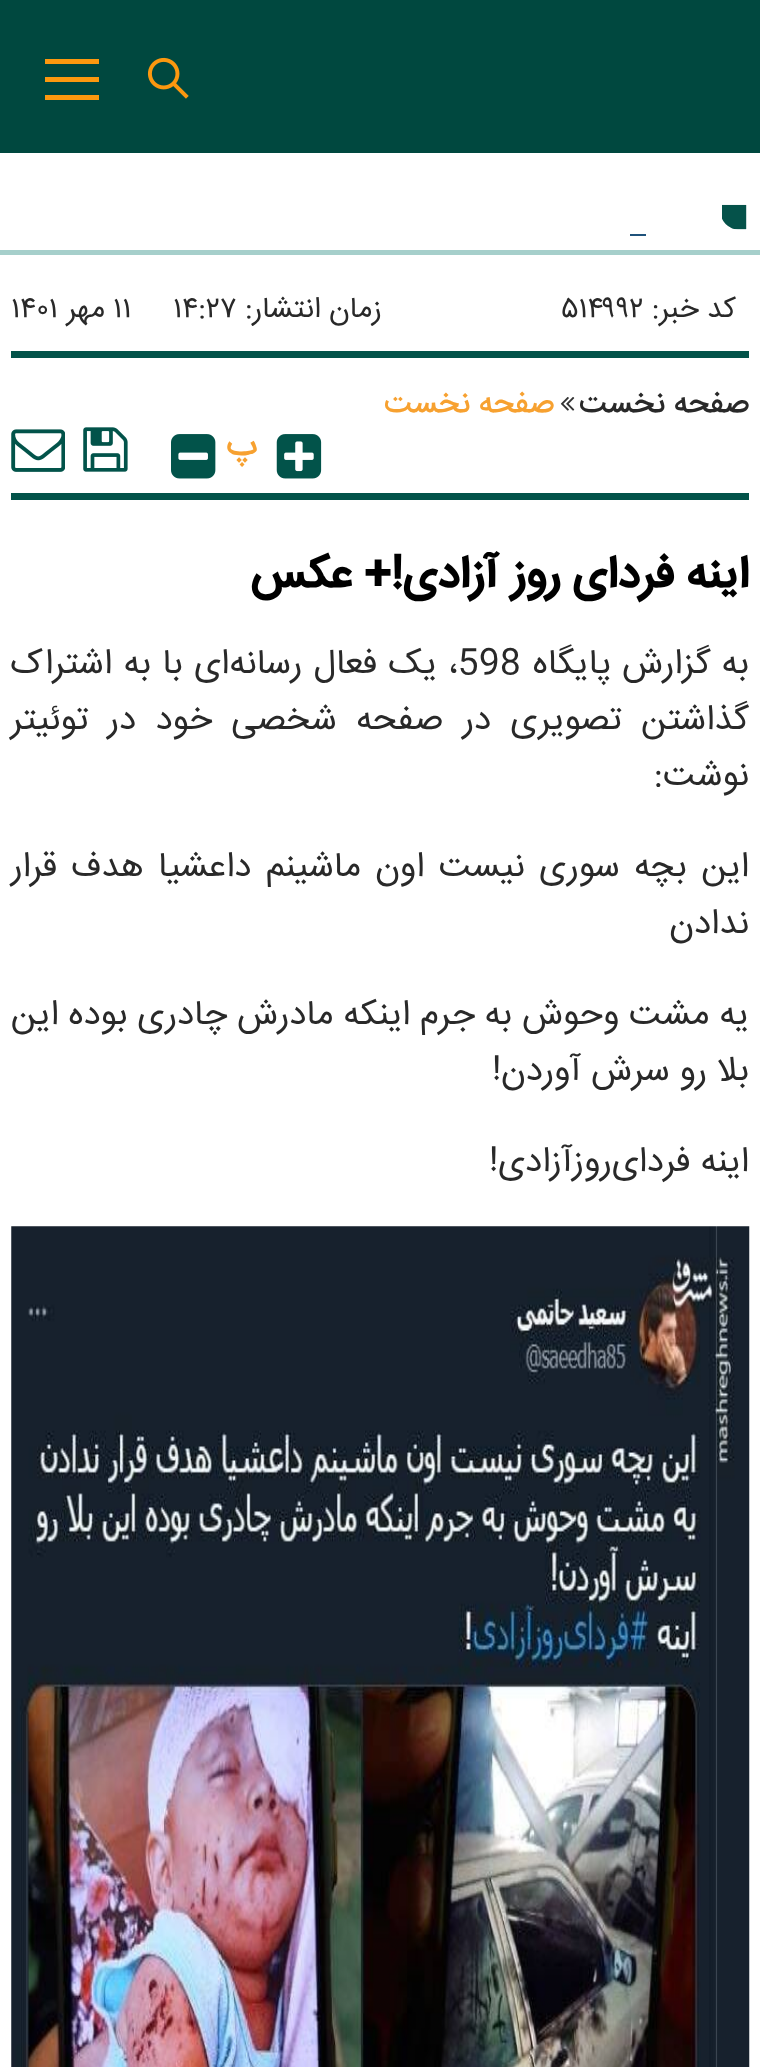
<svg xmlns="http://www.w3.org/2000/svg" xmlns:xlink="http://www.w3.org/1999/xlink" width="760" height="2067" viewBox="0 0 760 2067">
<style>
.cls-1{font:50px Liberation Serif;fill:#05524a}
.cls-2{font:29.25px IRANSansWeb;direction:rtl;fill:#292929}
.cls-3{font:29.25px IRANSansWeb;fill:#292929}
.cls-4{font:500 30.5px IRANSansWeb;direction:rtl;fill:#292929}
.cls-5{font:500 30.5px IRANSansWeb;direction:rtl;fill:#f7a130}
.cls-6{font:500 36px IRANSansWeb;direction:rtl;fill:#f7a130}
.cls-7{font:bold 45px IRANSansWeb;direction:rtl;fill:#000000}
.cls-8{font:34.9px IRANSansWeb;direction:rtl;fill:#292929}
.cls-9{font:34.9px IRANSansWeb;fill:#292929}
</style>
<defs>
<clipPath id="clip1"><path d="M720 187H749V230H740C729 230 720 221 720 210Z"/></clipPath>
</defs>
<rect width="100%" height="100%" fill="#ffffff"/>
<rect fill="#00483f" x="0" y="0" width="760" height="153"/>
<image xlink:href="image0.png" x="147" y="57" width="42" height="42"/>
<rect fill="#fc980f" x="45" y="59" width="54" height="5"/>
<rect fill="#fc980f" x="45" y="77" width="54" height="5"/>
<rect fill="#fc980f" x="45" y="95" width="54" height="5"/>
<rect fill="#a6cfcb" x="0" y="250" width="760" height="5"/>
<rect fill="#1f527b" x="630" y="234" width="16" height="2"/>
<rect fill="#03534a" x="11" y="351" width="738" height="7"/>
<rect fill="#03534a" x="11" y="493" width="738" height="7"/>
<image xlink:href="image1.png" x="560" y="397" width="15" height="14"/>
<image xlink:href="image2.png" x="276" y="434" width="46" height="45"/>
<image xlink:href="image3.png" x="171" y="434" width="45" height="45"/>
<image xlink:href="image4.png" x="83" y="427" width="45" height="45"/>
<image xlink:href="image5.png" x="11" y="429" width="54" height="43"/>
<image xlink:href="image6.png" x="11" y="1226" width="739" height="841"/>
<g clip-path="url(#clip1)">
<text class="cls-1" x="719" y="232">■</text>
</g>
<text class="cls-2" x="736" y="317">کد خبر:</text>
<text class="cls-3" x="561" y="317">۵۱۴۹۹۲</text>
<text class="cls-2" x="382" y="317">زمان انتشار:</text>
<text class="cls-3" x="173" y="317">۱۴:۲۷</text>
<text class="cls-3" x="113" y="317">۱۱</text>
<text class="cls-2" x="105" y="317">مهر</text>
<text class="cls-3" x="11" y="317">۱۴۰۱</text>
<text class="cls-4" x="749" y="412">صفحه نخست</text>
<text class="cls-5" x="554" y="412">صفحه نخست</text>
<text class="cls-6" x="257" y="455">پ</text>
<text class="cls-7" x="749" y="587">اینه فردای‌ روز آزادی!+ عکس</text>
<text class="cls-8" x="749" y="673" word-spacing="1">به گزارش</text>
<text class="cls-8" x="611" y="673">پایگاه</text>
<text class="cls-9" x="448" y="673">،598</text>
<text class="cls-8" x="437" y="673" word-spacing="1.5">یک فعال رسانه‌ای با به اشتراک</text>
<text class="cls-8"><tspan x="749" y="729" word-spacing="9.5">گذاشتن تصویری در صفحه شخصی خود در توئیتر</tspan><tspan x="749" y="785">نوشت:</tspan></text>
<text class="cls-8"><tspan x="749" y="876" word-spacing="4.5">این بچه سوری نیست اون ماشینم داعشیا هدف قرار</tspan><tspan x="749" y="933">ندادن</tspan></text>
<text class="cls-8"><tspan x="749" y="1024">یه مشت وحوش به جرم اینکه مادرش چادری بوده این</tspan><tspan x="749" y="1080">بلا رو سرش آوردن!</tspan></text>
<text class="cls-8" x="749" y="1171">اینه فردای‌روزآزادی!</text>
</svg>
